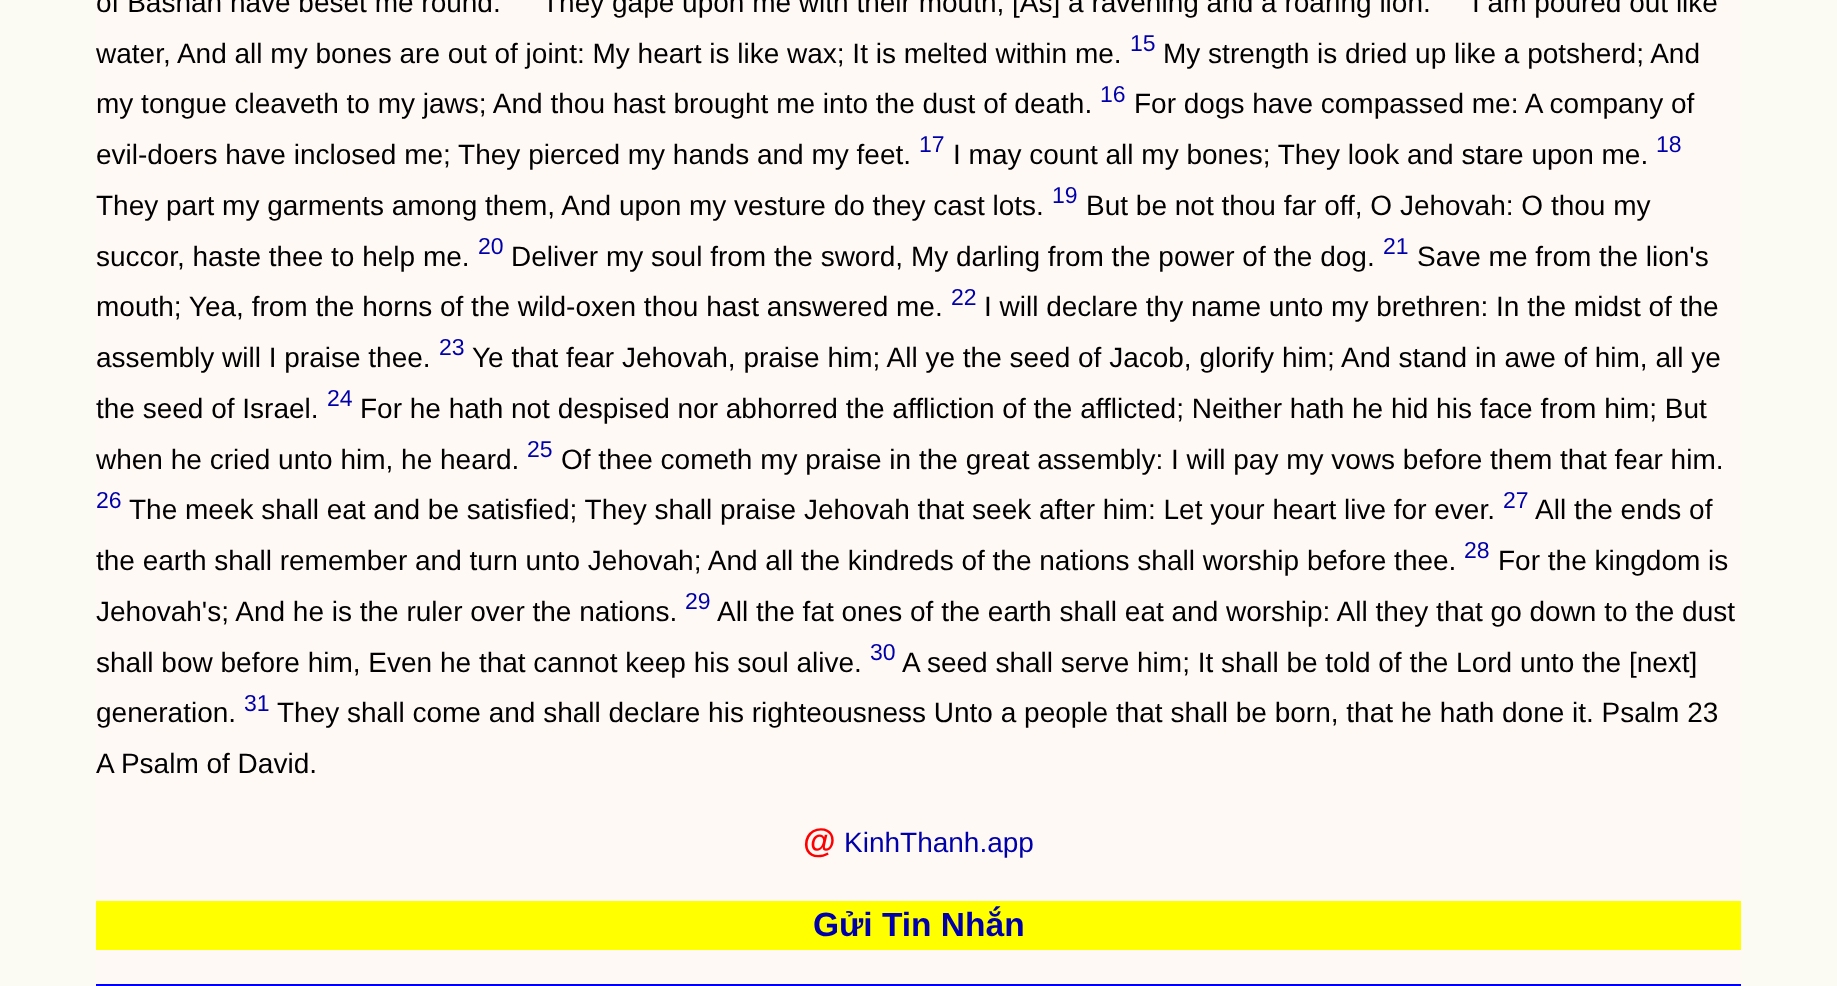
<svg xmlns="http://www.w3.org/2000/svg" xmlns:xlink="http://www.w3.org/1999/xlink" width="1837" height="986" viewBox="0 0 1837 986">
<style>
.cls-1{font:28px Liberation Sans;fill:#000000}
.cls-2{font:23px Liberation Sans;fill:#0000aa}
.cls-3{font:bold 33.5px Liberation Sans;fill:#ff0000}
.cls-4{font:28px Liberation Sans;fill:#0000aa}
.cls-5{font:bold 33.5px Liberation Sans;fill:#0000aa}
</style>
<rect width="100%" height="100%" fill="#fbfbf3"/>
<rect fill="#fff9f5" x="96" y="0" width="1645" height="984"/>
<rect fill="#ffff00" x="96" y="901" width="1645" height="49"/>
<rect fill="#0000ff" x="96" y="984" width="1645" height="2"/>
<text class="cls-1" x="96" y="12">of Bashan have beset me round.</text>
<text class="cls-1" x="542" y="12">They gape upon me with their mouth, [As] a ravening and a roaring lion.</text>
<text class="cls-1" x="1472" y="12">I am poured out like</text>
<text class="cls-1" x="96" y="63">water, And all my bones are out of joint: My heart is like wax; It is melted within me.</text>
<text class="cls-2" x="1130" y="51">15</text>
<text class="cls-1" x="1163" y="63">My strength is dried up like a potsherd; And</text>
<text class="cls-1" x="96" y="113">my tongue cleaveth to my jaws; And thou hast brought me into the dust of death.</text>
<text class="cls-2" x="1100" y="102">16</text>
<text class="cls-1" x="1134" y="113">For dogs have compassed me: A company of</text>
<text class="cls-1" x="96" y="164">evil-doers have inclosed me; They pierced my hands and my feet.</text>
<text class="cls-2" x="919" y="152">17</text>
<text class="cls-1" x="953" y="164">I may count all my bones; They look and stare upon me.</text>
<text class="cls-2" x="1656" y="152">18</text>
<text class="cls-1" x="96" y="215">They part my garments among them, And upon my vesture do they cast lots.</text>
<text class="cls-2" x="1052" y="203">19</text>
<text class="cls-1" x="1086" y="215">But be not thou far off, O Jehovah: O thou my</text>
<text class="cls-1" x="96" y="266">succor, haste thee to help me.</text>
<text class="cls-2" x="478" y="254">20</text>
<text class="cls-1" x="511" y="266">Deliver my soul from the sword, My darling from the power of the dog.</text>
<text class="cls-2" x="1383" y="254">21</text>
<text class="cls-1" x="1417" y="266">Save me from the lion's</text>
<text class="cls-1" x="96" y="316">mouth; Yea, from the horns of the wild-oxen thou hast answered me.</text>
<text class="cls-2" x="951" y="305">22</text>
<text class="cls-1" x="984" y="316">I will declare thy name unto my brethren: In the midst of the</text>
<text class="cls-1" x="96" y="367">assembly will I praise thee.</text>
<text class="cls-2" x="439" y="355">23</text>
<text class="cls-1" x="472" y="367">Ye that fear Jehovah, praise him; All ye the seed of Jacob, glorify him; And stand in awe of him, all ye</text>
<text class="cls-1" x="96" y="418">the seed of Israel.</text>
<text class="cls-2" x="327" y="406">24</text>
<text class="cls-1" x="360" y="418">For he hath not despised nor abhorred the affliction of the afflicted; Neither hath he hid his face from him; But</text>
<text class="cls-1" x="96" y="469">when he cried unto him, he heard.</text>
<text class="cls-2" x="527" y="457">25</text>
<text class="cls-1" x="561" y="469">Of thee cometh my praise in the great assembly: I will pay my vows before them that fear him.</text>
<text class="cls-2" x="96" y="508">26</text>
<text class="cls-1" x="129" y="519">The meek shall eat and be satisfied; They shall praise Jehovah that seek after him: Let your heart live for ever.</text>
<text class="cls-2" x="1503" y="508">27</text>
<text class="cls-1" x="1535" y="519">All the ends of</text>
<text class="cls-1" x="96" y="570">the earth shall remember and turn unto Jehovah; And all the kindreds of the nations shall worship before thee.</text>
<text class="cls-2" x="1464" y="558">28</text>
<text class="cls-1" x="1498" y="570">For the kingdom is</text>
<text class="cls-1" x="96" y="621">Jehovah's; And he is the ruler over the nations.</text>
<text class="cls-2" x="685" y="609">29</text>
<text class="cls-1" x="717" y="621">All the fat ones of the earth shall eat and worship: All they that go down to the dust</text>
<text class="cls-1" x="96" y="672">shall bow before him, Even he that cannot keep his soul alive.</text>
<text class="cls-2" x="870" y="660">30</text>
<text class="cls-1" x="902" y="672">A seed shall serve him; It shall be told of the Lord unto the [next]</text>
<text class="cls-1" x="96" y="722">generation.</text>
<text class="cls-2" x="244" y="711">31</text>
<text class="cls-1" x="277" y="722">They shall come and shall declare his righteousness Unto a people that shall be born, that he hath done it. Psalm 23</text>
<text class="cls-1" x="96" y="773">A Psalm of David.</text>
<text class="cls-3" x="803" y="852">@</text>
<text class="cls-4" x="844" y="852">KinhThanh.app</text>
<text class="cls-5" x="813" y="936">Gửi Tin Nhắn</text>
</svg>
